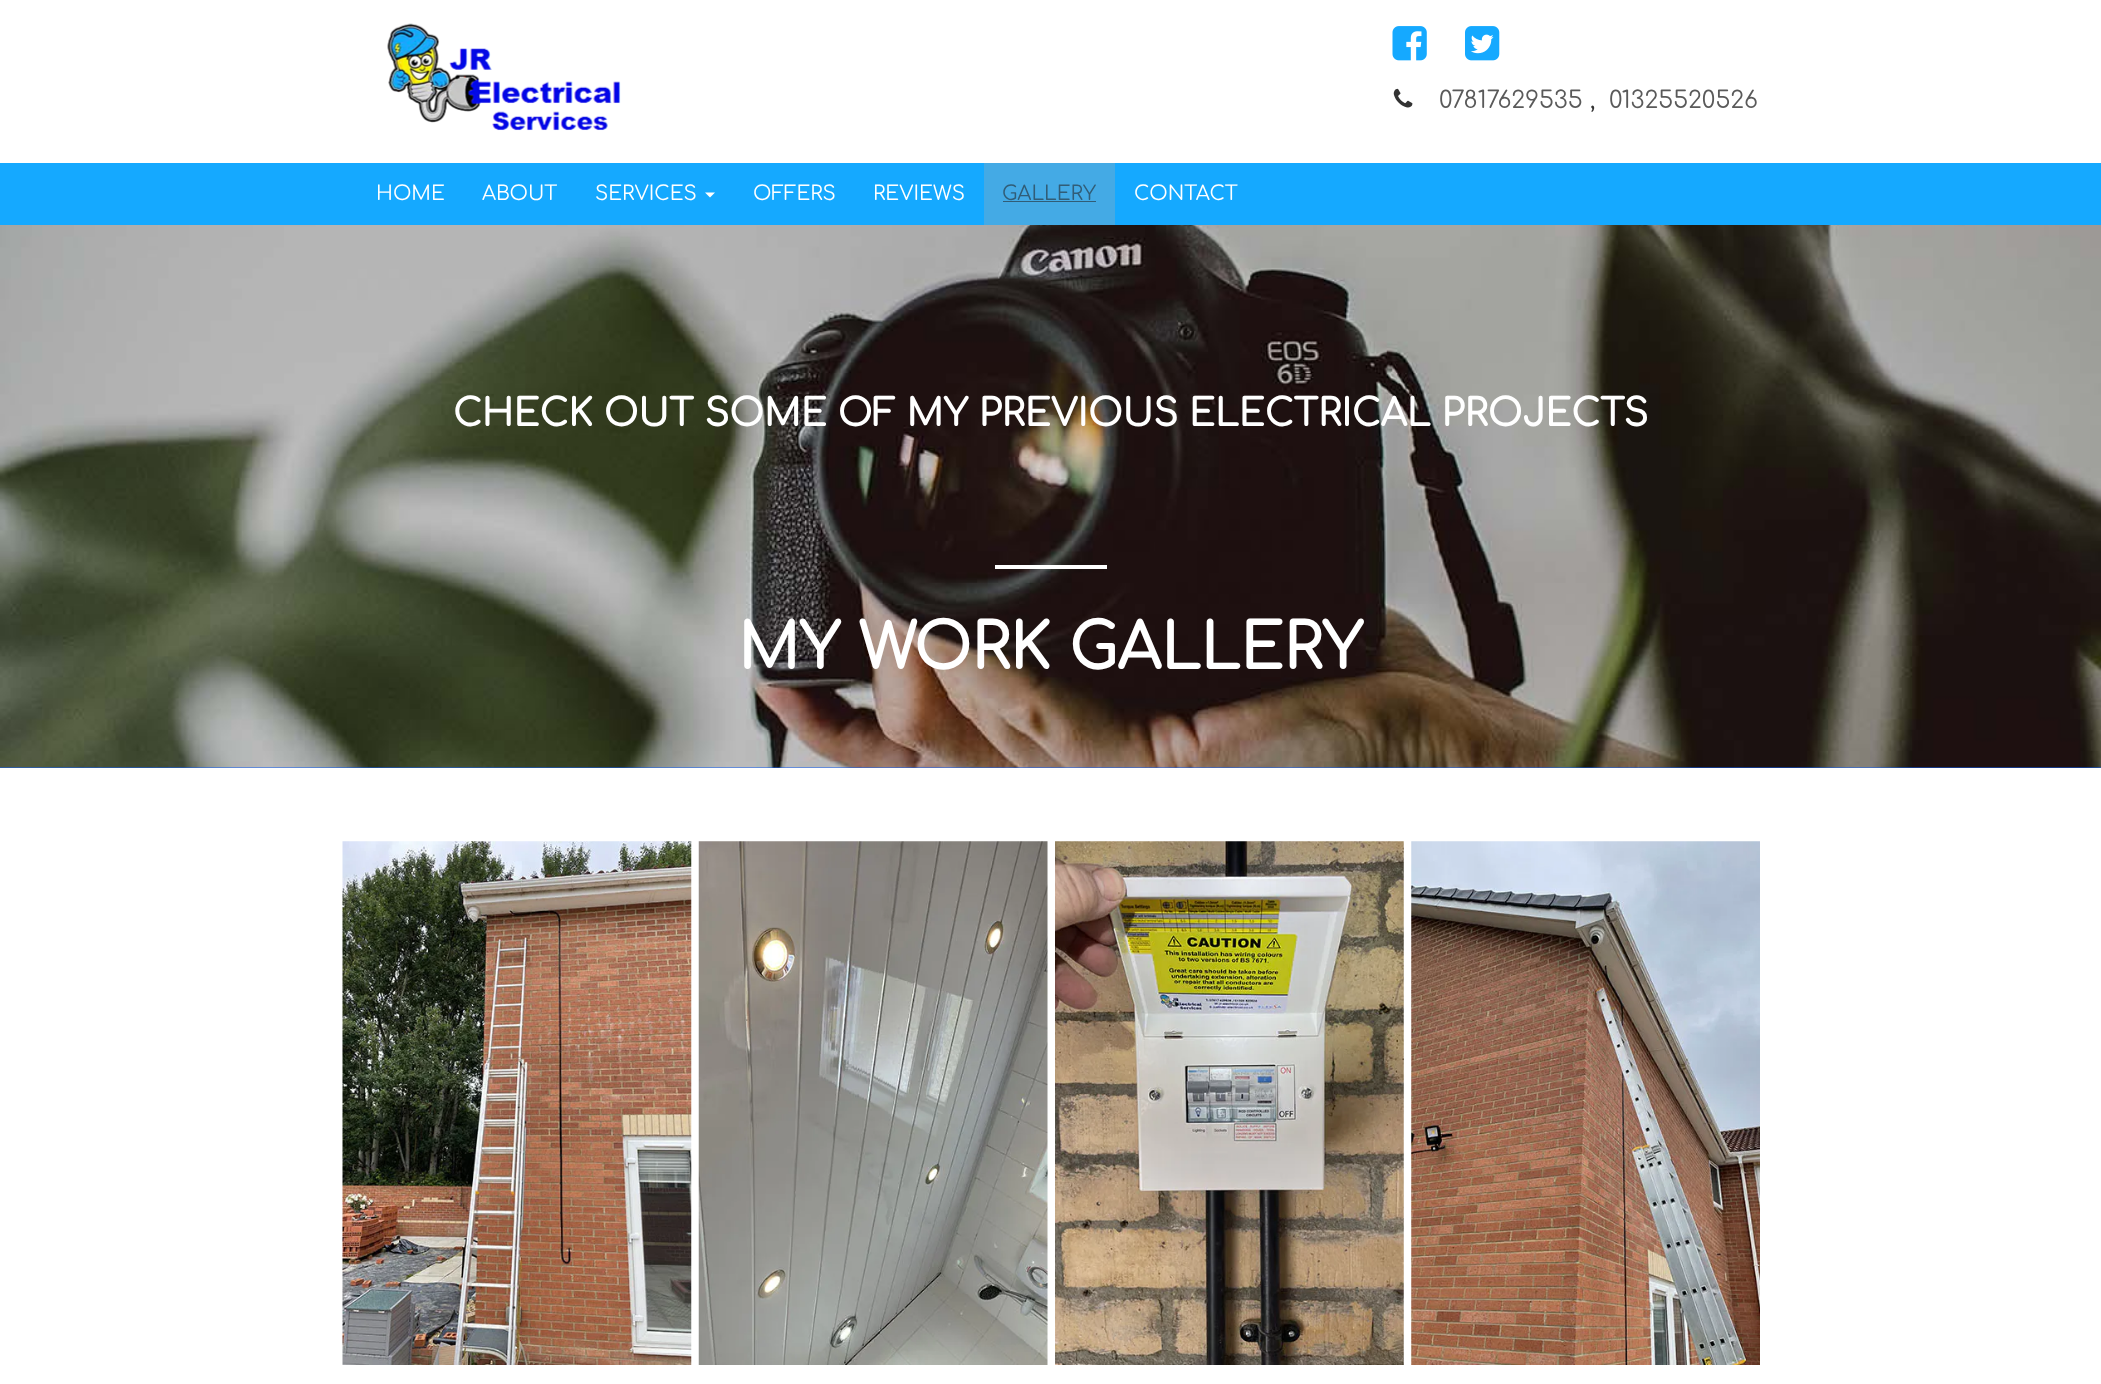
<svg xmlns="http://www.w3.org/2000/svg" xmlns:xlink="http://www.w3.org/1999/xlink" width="2101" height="1384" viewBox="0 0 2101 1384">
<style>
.cls-1{font:23.75px Comfortaa;fill:#5a5a5a}
.cls-2{font:23.75px Comfortaa;fill:#333333}
.cls-3{font:20px Comfortaa;fill:#ffffff}
.cls-4{font:20px Comfortaa;fill:#315d77}
.cls-5{font:bold 37.5px Comfortaa;fill:#ffffff}
.cls-6{font:bold 62.5px Comfortaa;fill:#ffffff}
</style>
<rect width="100%" height="100%" fill="#ffffff"/>
<image xlink:href="image0.png" x="387" y="23" width="234" height="108"/>
<image xlink:href="image1.png" x="1392" y="26" width="35" height="35"/>
<image xlink:href="image2.png" x="1465" y="26" width="35" height="35"/>
<image xlink:href="image3.png" x="1393" y="88" width="20" height="20"/>
<rect fill="#15a9ff" x="0" y="163" width="2101" height="62"/>
<path fill="#ffffff" d="M705 192.5H715L710 197.5Z"/>
<rect fill="#44aae5" x="984" y="163" width="131" height="62"/>
<rect fill="#315d77" x="1003" y="201" width="93" height="1"/>
<rect fill="#0e5ef8" x="0" y="767" width="2101" height="1"/>
<image xlink:href="image4.png" x="0" y="225" width="2101" height="543"/>
<rect fill="#ffffff" x="995" y="565" width="112" height="4"/>
<image xlink:href="image5.png" x="342" y="841" width="350" height="524"/>
<image xlink:href="image6.png" x="698" y="841" width="350" height="524"/>
<image xlink:href="image7.png" x="1055" y="841" width="349" height="524"/>
<image xlink:href="image8.png" x="1411" y="841" width="349" height="524"/>
<text class="cls-1" x="1439" y="108">07817629535</text>
<text class="cls-2" x="1590" y="108">,</text>
<text class="cls-1" x="1609" y="108">01325520526</text>
<text class="cls-3" x="376" y="200">HOME</text>
<text class="cls-3" x="482" y="200">ABOUT</text>
<text class="cls-3" x="595" y="200">SERVICES</text>
<text class="cls-3" x="753" y="200">OFFERS</text>
<text class="cls-3" x="873" y="200">REVIEWS</text>
<text class="cls-4" x="1002" y="200">GALLERY</text>
<text class="cls-3" x="1134" y="200">CONTACT</text>
<text class="cls-5" x="453" y="426">CHECK OUT SOME OF MY PREVIOUS ELECTRICAL PROJECTS</text>
<text class="cls-6" x="738" y="669">MY WORK GALLERY</text>
</svg>
